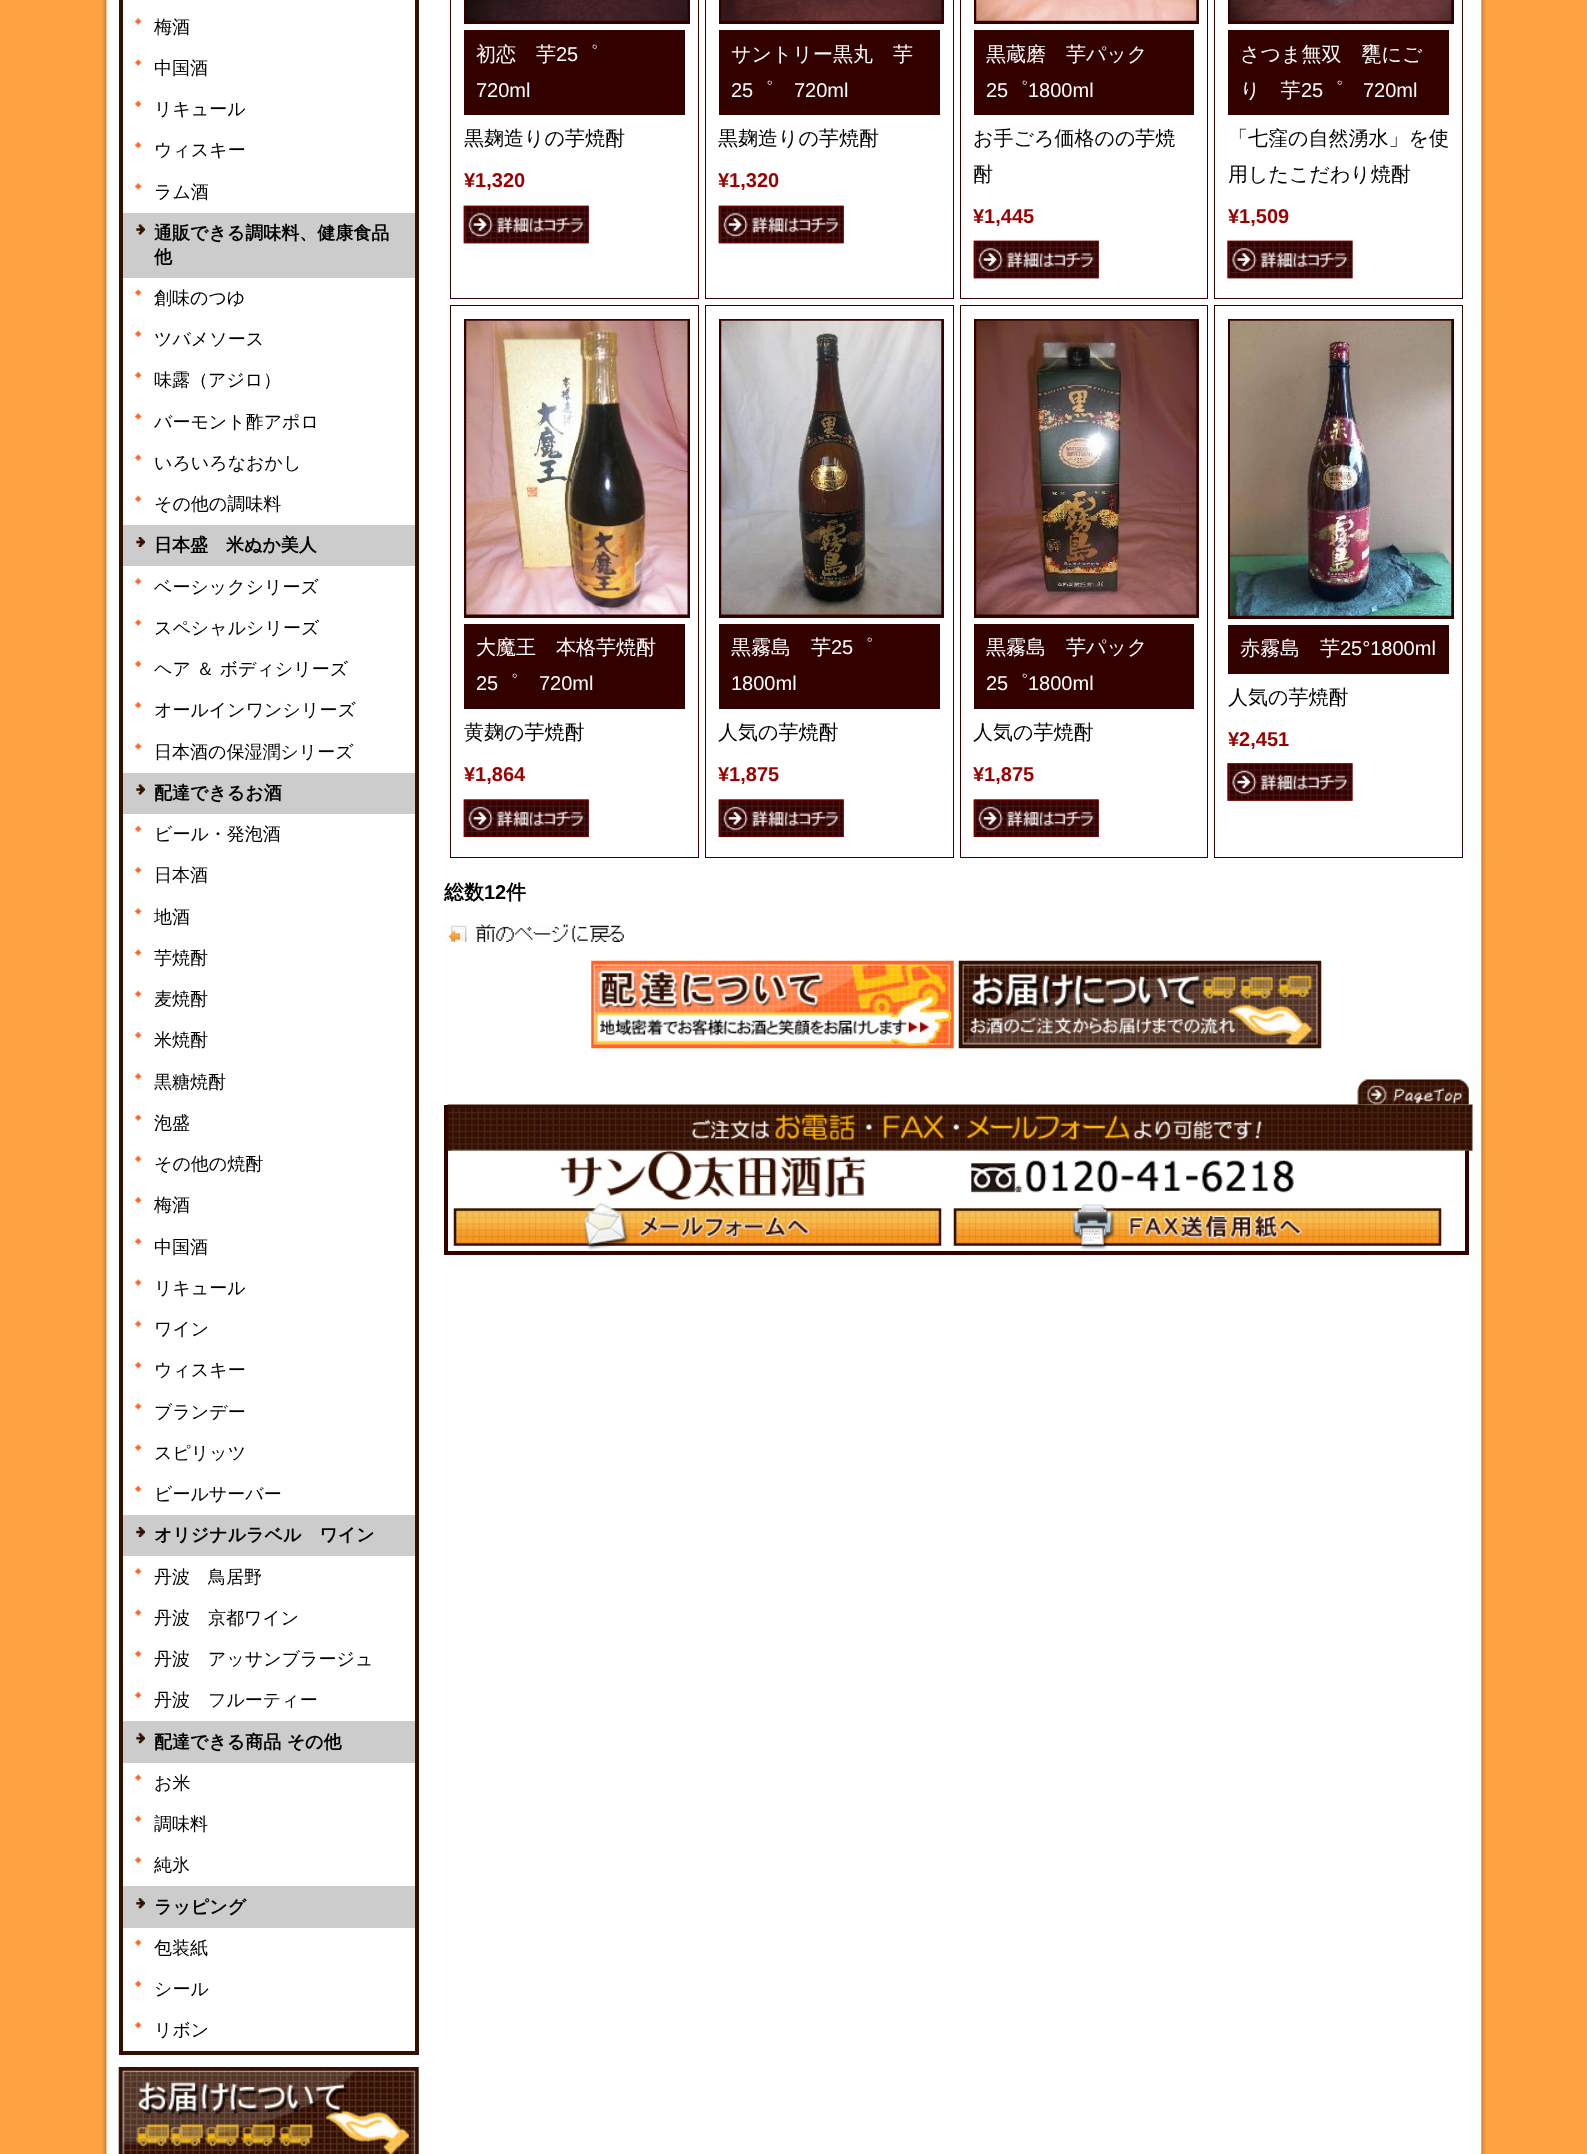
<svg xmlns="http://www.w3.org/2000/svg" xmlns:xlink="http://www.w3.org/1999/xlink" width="1587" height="2154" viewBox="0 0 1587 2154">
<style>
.cls-1{font:500 18px WenQuanYi Zen Hei;fill:#000000}
.cls-2{font:bold 18px WenQuanYi Zen Hei;fill:#000000}
.cls-3{font:500 20px WenQuanYi Zen Hei;fill:#ffffff}
.cls-4{font:20px Liberation Sans;fill:#ffffff}
.cls-5{font:500 20px WenQuanYi Zen Hei;fill:#000000}
.cls-6{font:bold 20px Liberation Sans;fill:#990000}
.cls-7{font:bold 20px WenQuanYi Zen Hei;fill:#000000}
.cls-8{font:bold 20px Liberation Sans;fill:#000000}
</style>
<rect width="100%" height="100%" fill="#ffa242"/>
<image xlink:href="image0.png" x="102" y="0" width="1384" height="2154"/>
<rect fill="#351001" x="415" y="0" width="4" height="2055"/>
<rect fill="#351001" x="119" y="2051" width="300" height="4"/>
<rect fill="#351001" x="119" y="0" width="4" height="2055"/>
<image xlink:href="image1.png" x="135" y="18" width="7" height="7"/>
<image xlink:href="image2.png" x="135" y="59" width="7" height="7"/>
<image xlink:href="image3.png" x="135" y="100" width="7" height="7"/>
<image xlink:href="image4.png" x="135" y="142" width="7" height="7"/>
<image xlink:href="image1.png" x="135" y="183" width="7" height="7"/>
<rect fill="#cccccc" x="123" y="213" width="292" height="65"/>
<image xlink:href="image5.png" x="136" y="224" width="9" height="11"/>
<image xlink:href="image2.png" x="135" y="289" width="7" height="7"/>
<image xlink:href="image3.png" x="135" y="330" width="7" height="7"/>
<image xlink:href="image4.png" x="135" y="372" width="7" height="7"/>
<image xlink:href="image1.png" x="135" y="413" width="7" height="7"/>
<image xlink:href="image2.png" x="135" y="454" width="7" height="7"/>
<image xlink:href="image3.png" x="135" y="495" width="7" height="7"/>
<rect fill="#cccccc" x="123" y="525" width="292" height="41"/>
<image xlink:href="image6.png" x="136" y="537" width="9" height="10"/>
<image xlink:href="image1.png" x="135" y="578" width="7" height="7"/>
<image xlink:href="image2.png" x="135" y="619" width="7" height="7"/>
<image xlink:href="image3.png" x="135" y="660" width="7" height="7"/>
<image xlink:href="image4.png" x="135" y="702" width="7" height="7"/>
<image xlink:href="image1.png" x="135" y="743" width="7" height="7"/>
<rect fill="#cccccc" x="123" y="773" width="292" height="41"/>
<image xlink:href="image5.png" x="136" y="784" width="9" height="11"/>
<image xlink:href="image3.png" x="135" y="825" width="7" height="7"/>
<image xlink:href="image4.png" x="135" y="867" width="7" height="7"/>
<image xlink:href="image1.png" x="135" y="908" width="7" height="7"/>
<image xlink:href="image2.png" x="135" y="949" width="7" height="7"/>
<image xlink:href="image3.png" x="135" y="990" width="7" height="7"/>
<image xlink:href="image4.png" x="135" y="1032" width="7" height="7"/>
<image xlink:href="image1.png" x="135" y="1073" width="7" height="7"/>
<image xlink:href="image2.png" x="135" y="1114" width="7" height="7"/>
<image xlink:href="image3.png" x="135" y="1155" width="7" height="7"/>
<image xlink:href="image4.png" x="135" y="1197" width="7" height="7"/>
<image xlink:href="image1.png" x="135" y="1238" width="7" height="7"/>
<image xlink:href="image2.png" x="135" y="1279" width="7" height="7"/>
<image xlink:href="image3.png" x="135" y="1320" width="7" height="7"/>
<image xlink:href="image4.png" x="135" y="1362" width="7" height="7"/>
<image xlink:href="image1.png" x="135" y="1403" width="7" height="7"/>
<image xlink:href="image2.png" x="135" y="1444" width="7" height="7"/>
<image xlink:href="image3.png" x="135" y="1485" width="7" height="7"/>
<rect fill="#cccccc" x="123" y="1515" width="292" height="41"/>
<image xlink:href="image6.png" x="136" y="1527" width="9" height="10"/>
<image xlink:href="image1.png" x="135" y="1568" width="7" height="7"/>
<image xlink:href="image2.png" x="135" y="1609" width="7" height="7"/>
<image xlink:href="image3.png" x="135" y="1650" width="7" height="7"/>
<image xlink:href="image4.png" x="135" y="1692" width="7" height="7"/>
<rect fill="#cccccc" x="123" y="1721" width="292" height="42"/>
<image xlink:href="image7.png" x="136" y="1733" width="9" height="11"/>
<image xlink:href="image2.png" x="135" y="1774" width="7" height="7"/>
<image xlink:href="image3.png" x="135" y="1815" width="7" height="7"/>
<image xlink:href="image4.png" x="135" y="1857" width="7" height="7"/>
<rect fill="#cccccc" x="123" y="1886" width="292" height="42"/>
<image xlink:href="image7.png" x="136" y="1898" width="9" height="11"/>
<image xlink:href="image2.png" x="135" y="1939" width="7" height="7"/>
<image xlink:href="image3.png" x="135" y="1980" width="7" height="7"/>
<image xlink:href="image4.png" x="135" y="2022" width="7" height="7"/>
<image xlink:href="image8.png" x="118" y="2067" width="301" height="87"/>
<rect fill="none" stroke="#330000" x="450.5" y="-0.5" width="248" height="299"/>
<rect fill="#330000" x="464" y="0" width="226" height="24"/>
<image xlink:href="image9.png" x="466" y="0" width="222" height="21"/>
<rect fill="#330000" x="464" y="30" width="221" height="85"/>
<image xlink:href="image10.png" x="463" y="205" width="126" height="39"/>
<image xlink:href="image11.png" x="463" y="205" width="126" height="39"/>
<rect fill="none" stroke="#330000" x="705.5" y="-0.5" width="248" height="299"/>
<rect fill="#330000" x="719" y="0" width="225" height="24"/>
<image xlink:href="image12.png" x="721" y="0" width="221" height="21"/>
<rect fill="#330000" x="719" y="30" width="221" height="85"/>
<image xlink:href="image13.png" x="718" y="205" width="126" height="39"/>
<image xlink:href="image14.png" x="718" y="205" width="126" height="39"/>
<rect fill="none" stroke="#330000" x="960.5" y="-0.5" width="247" height="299"/>
<rect fill="#330000" x="974" y="0" width="225" height="24"/>
<image xlink:href="image15.png" x="976" y="0" width="221" height="21"/>
<rect fill="#330000" x="974" y="30" width="220" height="85"/>
<image xlink:href="image16.png" x="973" y="240" width="126" height="39"/>
<image xlink:href="image17.png" x="973" y="240" width="126" height="39"/>
<rect fill="none" stroke="#330000" x="1214.5" y="-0.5" width="248" height="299"/>
<rect fill="#330000" x="1228" y="0" width="226" height="24"/>
<image xlink:href="image18.png" x="1230" y="0" width="222" height="21"/>
<rect fill="#330000" x="1228" y="30" width="221" height="85"/>
<image xlink:href="image19.png" x="1227" y="240" width="126" height="39"/>
<image xlink:href="image20.png" x="1227" y="240" width="126" height="39"/>
<rect fill="none" stroke="#330000" x="450.5" y="305.5" width="248" height="552"/>
<rect fill="#330000" x="464" y="319" width="226" height="299"/>
<image xlink:href="image21.png" x="466" y="320" width="222" height="295"/>
<rect fill="#330000" x="464" y="624" width="221" height="85"/>
<image xlink:href="image22.png" x="463" y="799" width="126" height="38"/>
<image xlink:href="image23.png" x="463" y="799" width="126" height="38"/>
<rect fill="none" stroke="#330000" x="705.5" y="305.5" width="248" height="552"/>
<rect fill="#330000" x="719" y="319" width="225" height="299"/>
<image xlink:href="image24.png" x="721" y="320" width="221" height="295"/>
<rect fill="#330000" x="719" y="624" width="221" height="85"/>
<image xlink:href="image25.png" x="718" y="799" width="126" height="38"/>
<image xlink:href="image26.png" x="718" y="799" width="126" height="38"/>
<rect fill="none" stroke="#330000" x="960.5" y="305.5" width="247" height="552"/>
<rect fill="#330000" x="974" y="319" width="225" height="299"/>
<image xlink:href="image27.png" x="976" y="320" width="221" height="295"/>
<rect fill="#330000" x="974" y="624" width="220" height="85"/>
<image xlink:href="image28.png" x="973" y="799" width="126" height="38"/>
<image xlink:href="image29.png" x="973" y="799" width="126" height="38"/>
<rect fill="none" stroke="#330000" x="1214.5" y="305.5" width="248" height="552"/>
<rect fill="#330000" x="1228" y="319" width="226" height="300"/>
<image xlink:href="image30.png" x="1230" y="320" width="222" height="296"/>
<rect fill="#330000" x="1228" y="625" width="221" height="49"/>
<image xlink:href="image31.png" x="1227" y="763" width="126" height="38"/>
<image xlink:href="image32.png" x="1227" y="763" width="126" height="38"/>
<image xlink:href="image33.png" x="443" y="923" width="181" height="19"/>
<image xlink:href="image34.png" x="443" y="923" width="145" height="19"/>
<image xlink:href="image35.png" x="591" y="960" width="363" height="89"/>
<image xlink:href="image36.png" x="958" y="960" width="364" height="89"/>
<image xlink:href="image37.png" x="1357" y="1079" width="112" height="26"/>
<rect fill="#330000" x="1465" y="1150" width="4" height="105"/>
<rect fill="#330000" x="444" y="1251" width="1025" height="4"/>
<rect fill="#330000" x="444" y="1105" width="4" height="150"/>
<image xlink:href="image39.png" x="559" y="1150" width="307" height="51"/>
<image xlink:href="image38.png" x="447" y="1104" width="1026" height="47"/>
<image xlink:href="image40.png" x="971" y="1160" width="323" height="33"/>
<image xlink:href="image41.png" x="453" y="1203" width="489" height="48"/>
<image xlink:href="image42.png" x="953" y="1204" width="489" height="47"/>
<text class="cls-1" x="154" y="33">梅酒</text>
<text class="cls-1" x="154" y="74">中国酒</text>
<text class="cls-1" x="154" y="115">リキュール</text>
<text class="cls-1" x="154" y="156">ウィスキー</text>
<text class="cls-1" x="154" y="198">ラム酒</text>
<text class="cls-2"><tspan x="154" y="239">通販できる調味料、健康食品</tspan><tspan x="154" y="263">他</tspan></text>
<text class="cls-1" x="154" y="304">創味のつゆ</text>
<text class="cls-1" x="154" y="345">ツバメソース</text>
<text class="cls-1" x="154" y="386">味露（アジロ）</text>
<text class="cls-1" x="154" y="428">バーモント酢アポロ</text>
<text class="cls-1" x="154" y="469">いろいろなおかし</text>
<text class="cls-1" x="154" y="510">その他の調味料</text>
<text class="cls-2" x="154" y="551">日本盛　米ぬか美人</text>
<text class="cls-1" x="154" y="593">ベーシックシリーズ</text>
<text class="cls-1" x="154" y="634">スペシャルシリーズ</text>
<text class="cls-1" x="154" y="675">ヘア ＆ ボディシリーズ</text>
<text class="cls-1" x="154" y="716">オールインワンシリーズ</text>
<text class="cls-1" x="154" y="758">日本酒の保湿潤シリーズ</text>
<text class="cls-2" x="154" y="799">配達できるお酒</text>
<text class="cls-1" x="154" y="840">ビール・発泡酒</text>
<text class="cls-1" x="154" y="881">日本酒</text>
<text class="cls-1" x="154" y="923">地酒</text>
<text class="cls-1" x="154" y="964">芋焼酎</text>
<text class="cls-1" x="154" y="1005">麦焼酎</text>
<text class="cls-1" x="154" y="1046">米焼酎</text>
<text class="cls-1" x="154" y="1088">黒糖焼酎</text>
<text class="cls-1" x="154" y="1129">泡盛</text>
<text class="cls-1" x="154" y="1170">その他の焼酎</text>
<text class="cls-1" x="154" y="1211">梅酒</text>
<text class="cls-1" x="154" y="1253">中国酒</text>
<text class="cls-1" x="154" y="1294">リキュール</text>
<text class="cls-1" x="154" y="1335">ワイン</text>
<text class="cls-1" x="154" y="1376">ウィスキー</text>
<text class="cls-1" x="154" y="1418">ブランデー</text>
<text class="cls-1" x="154" y="1459">スピリッツ</text>
<text class="cls-1" x="154" y="1500">ビールサーバー</text>
<text class="cls-2" x="154" y="1541">オリジナルラベル　ワイン</text>
<text class="cls-1" x="154" y="1583">丹波　鳥居野</text>
<text class="cls-1" x="154" y="1624">丹波　京都ワイン</text>
<text class="cls-1" x="154" y="1665">丹波　アッサンブラージュ</text>
<text class="cls-1" x="154" y="1706">丹波　フルーティー</text>
<text class="cls-2" x="154" y="1748">配達できる商品 その他</text>
<text class="cls-1" x="154" y="1789">お米</text>
<text class="cls-1" x="154" y="1830">調味料</text>
<text class="cls-1" x="154" y="1871">純氷</text>
<text class="cls-2" x="154" y="1913">ラッピング</text>
<text class="cls-1" x="154" y="1954">包装紙</text>
<text class="cls-1" x="154" y="1995">シール</text>
<text class="cls-1" x="154" y="2036">リボン</text>
<text class="cls-3" x="476" y="61">初恋　芋</text>
<text class="cls-3" x="578" y="61">゜</text>
<text class="cls-4" x="556" y="61">25</text>
<text class="cls-4" x="476" y="97">720ml</text>
<text class="cls-5" x="464" y="145">黒麹造りの芋焼酎</text>
<text class="cls-6" x="464" y="187">¥1,320</text>
<text class="cls-3" x="731" y="61">サントリー黒丸　芋</text>
<text class="cls-4" x="731" y="97">25</text>
<text class="cls-3" x="753" y="97">゜</text>
<text class="cls-4" x="794" y="97">720ml</text>
<text class="cls-5" x="718" y="145">黒麹造りの芋焼酎</text>
<text class="cls-6" x="718" y="187">¥1,320</text>
<text class="cls-3" x="986" y="61">黒蔵磨　芋パック</text>
<text class="cls-4" x="986" y="97">25</text>
<text class="cls-3" x="1008" y="97">゜</text>
<text class="cls-4" x="1028" y="97">1800ml</text>
<text class="cls-5"><tspan x="973" y="145">お手ごろ価格のの芋焼</tspan><tspan x="973" y="181">酎</tspan></text>
<text class="cls-6" x="973" y="223">¥1,445</text>
<text class="cls-3"><tspan x="1240" y="61">さつま無双　甕にご</tspan><tspan x="1240" y="97">り　芋</tspan></text>
<text class="cls-4" x="1301" y="97">25</text>
<text class="cls-3" x="1323" y="97">゜</text>
<text class="cls-4" x="1363" y="97">720ml</text>
<text class="cls-5"><tspan x="1228" y="145">「七窪の自然湧水」を使</tspan><tspan x="1228" y="181">用したこだわり焼酎</tspan></text>
<text class="cls-6" x="1228" y="223">¥1,509</text>
<text class="cls-3" x="476" y="654">大魔王　本格芋焼酎</text>
<text class="cls-4" x="476" y="690">25</text>
<text class="cls-3" x="498" y="690">゜</text>
<text class="cls-4" x="539" y="690">720ml</text>
<text class="cls-5" x="464" y="739">黄麹の芋焼酎</text>
<text class="cls-6" x="464" y="781">¥1,864</text>
<text class="cls-3" x="731" y="654">黒霧島　芋</text>
<text class="cls-3" x="853" y="654">゜</text>
<text class="cls-4" x="831" y="654">25</text>
<text class="cls-4" x="731" y="690">1800ml</text>
<text class="cls-5" x="718" y="739">人気の芋焼酎</text>
<text class="cls-6" x="718" y="781">¥1,875</text>
<text class="cls-3" x="986" y="654">黒霧島　芋パック</text>
<text class="cls-4" x="986" y="690">25</text>
<text class="cls-3" x="1008" y="690">゜</text>
<text class="cls-4" x="1028" y="690">1800ml</text>
<text class="cls-5" x="973" y="739">人気の芋焼酎</text>
<text class="cls-6" x="973" y="781">¥1,875</text>
<text class="cls-3" x="1240" y="655">赤霧島　芋</text>
<text class="cls-4" x="1340" y="655">25°1800ml</text>
<text class="cls-5" x="1228" y="704">人気の芋焼酎</text>
<text class="cls-6" x="1228" y="746">¥2,451</text>
<text class="cls-7" x="444" y="899">総数</text>
<text class="cls-8" x="484" y="899">12</text>
<text class="cls-7" x="506" y="899">件</text>
</svg>
